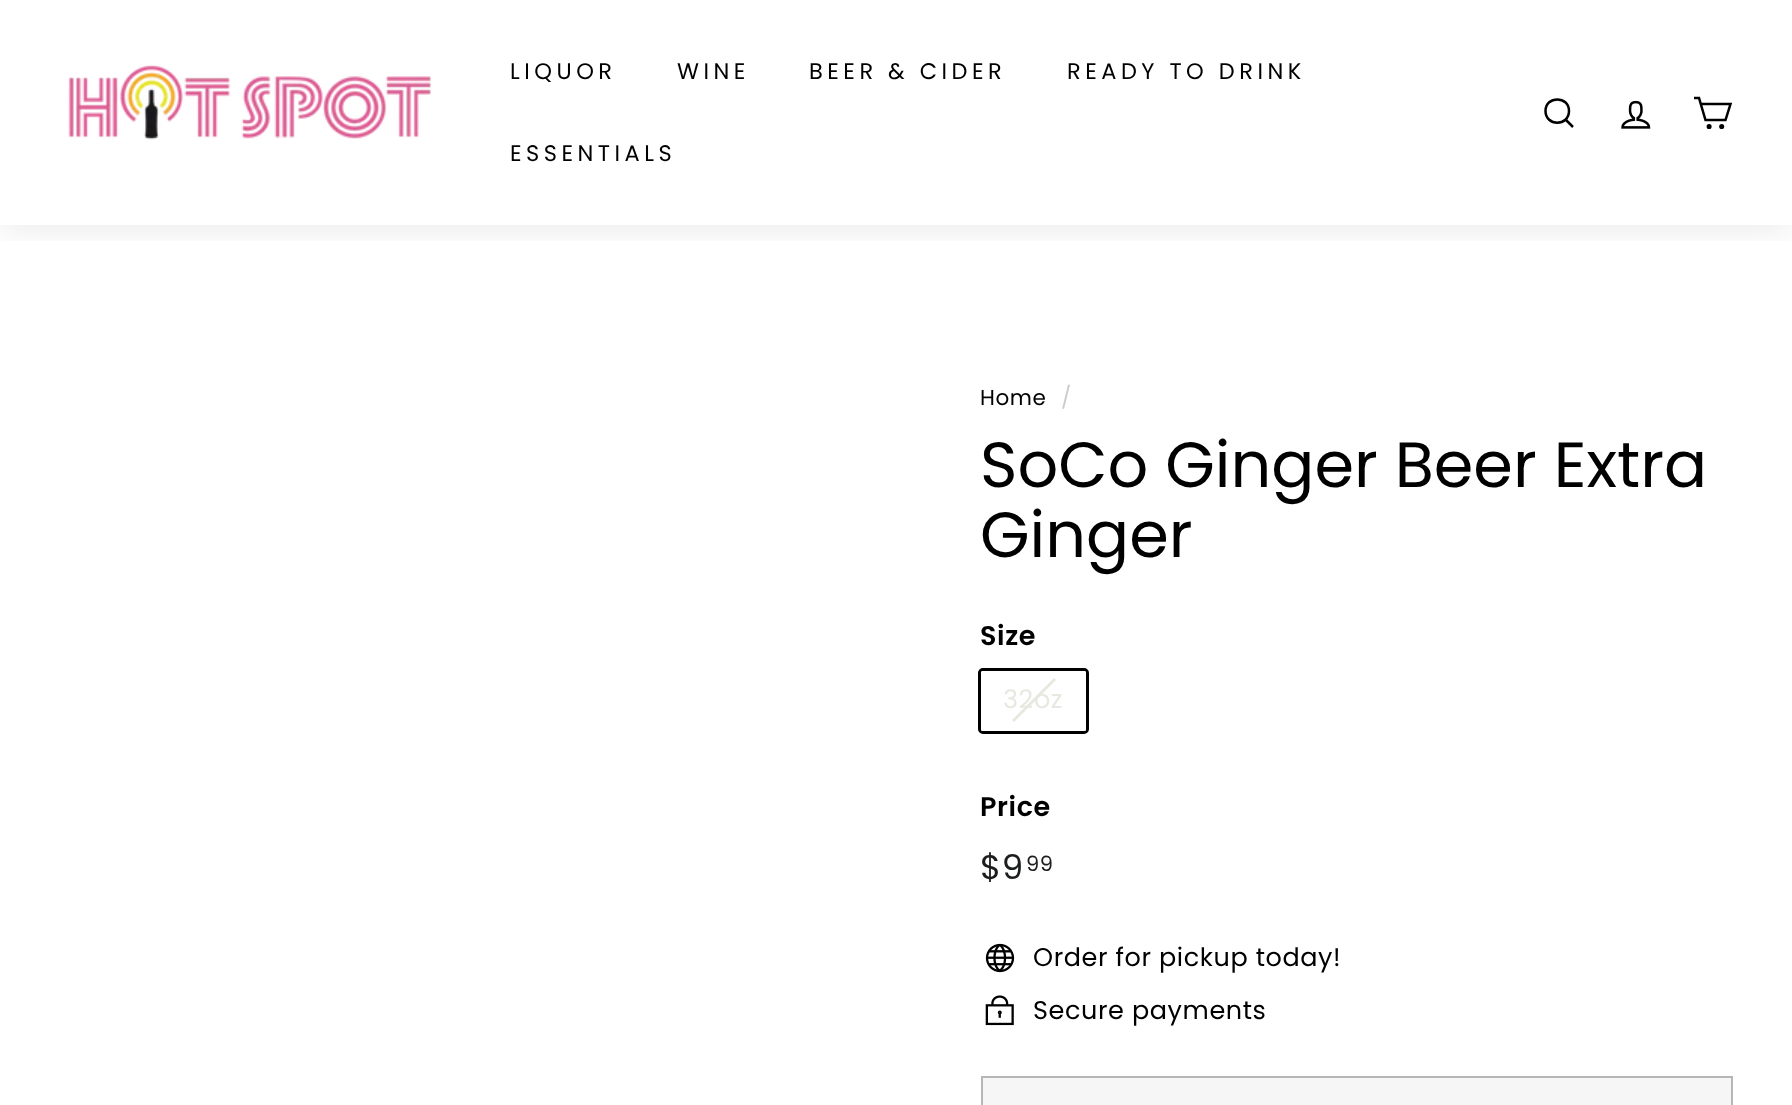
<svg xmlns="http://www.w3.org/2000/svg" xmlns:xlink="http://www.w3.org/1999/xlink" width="1792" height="1105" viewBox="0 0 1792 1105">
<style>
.cls-1{font:22.5px Poppins;letter-spacing:4.5px;fill:#000000}
.cls-2{font:21.5px Poppins;letter-spacing:0.6px;fill:#000000}
.cls-3{font:21.5px Poppins;letter-spacing:0.6px;fill:#cccccc}
.cls-4{font:63.75px Poppins;fill:#000000}
.cls-5{font:600 27px Poppins;letter-spacing:0.6px;fill:#000000}
.cls-6{font:25.5px Poppins;letter-spacing:0.6px;fill:#e8e8e1}
.cls-7{font:34px Poppins;letter-spacing:0.6px;fill:#1c1d1d}
.cls-8{font:21px Poppins;letter-spacing:0.6px;fill:#1c1d1d}
.cls-9{font:25.5px Poppins;letter-spacing:0.6px;fill:#000000}
</style>
<defs>
<clipPath id="clip1"><rect x="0" y="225" width="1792" height="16"/></clipPath>
</defs>
<rect width="100%" height="100%" fill="#ffffff"/>
<g clip-path="url(#clip1)">
<rect fill="#000000" fill-opacity="0.1" filter="blur(19px)" x="0" y="0" width="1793" height="225"/>
</g>
<image xlink:href="image0.png" x="68" y="65" width="363" height="75"/>
<path fill="none" stroke="#000000" stroke-width="2.5" d="M1569 111C1569 126.5 1545.5 126.5 1545.5 111C1545.5 95.5 1569 95.5 1569 111ZM1573 127L1565.5 119.5"/>
<image xlink:href="image1.png" x="1621" y="100" width="30" height="29"/>
<path fill="none" stroke="#000000" stroke-width="2.5" d="M1701 104H1730.5L1725.5 120H1705.5L1699 98H1694"/>
<circle fill="none" stroke="#000000" stroke-width="2.5" cx="1709.1" cy="126.5" r="1.3"/>
<circle fill="none" stroke="#000000" stroke-width="2.5" cx="1721.7" cy="126.5" r="1.3"/>
<rect fill="none" stroke="#000000" stroke-width="3" x="979.5" y="669.5" width="108" height="63" rx="3.5"/>
<rect fill="#ffffff" x="981" y="671" width="105" height="60" rx="1.5"/>
<path fill="#e8e8e1" d="M1054 678L1056 680L1014 722L1012 720Z"/>
<image xlink:href="image2.png" x="985" y="943" width="30" height="30"/>
<image xlink:href="image3.png" x="985" y="995" width="29" height="31"/>
<rect fill="#f6f6f6" stroke="#b6b6b6" stroke-width="2" x="982" y="1077" width="750" height="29"/>
<text class="cls-1" x="510" y="79">LIQUOR</text>
<text class="cls-1" x="677" y="79">WINE</text>
<text class="cls-1" x="809" y="79">BEER &amp; CIDER</text>
<text class="cls-1" x="1067" y="79">READY TO DRINK</text>
<text class="cls-1" x="510" y="161">ESSENTIALS</text>
<text class="cls-2" x="980" y="405">Home</text>
<text class="cls-3" x="1061" y="405">/</text>
<text class="cls-4"><tspan x="980" y="487">SoCo Ginger Beer Extra</tspan><tspan x="980" y="557">Ginger</tspan></text>
<text class="cls-5" x="980" y="645">Size</text>
<text class="cls-6" x="1003" y="708">32oz</text>
<text class="cls-5" x="980" y="816">Price</text>
<text class="cls-7" x="980" y="879">$9</text>
<text class="cls-8" x="1026" y="871">99</text>
<text class="cls-9" x="1033" y="966">Order for pickup today!</text>
<text class="cls-9" x="1033" y="1019">Secure payments</text>
</svg>
